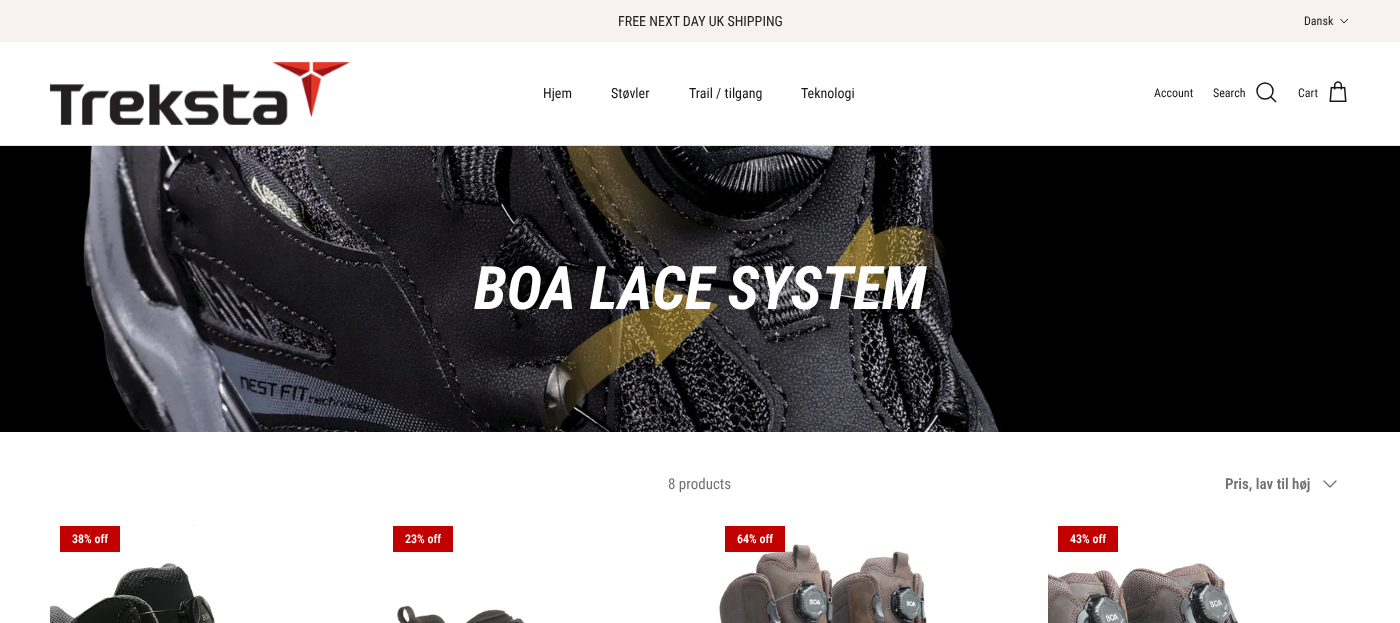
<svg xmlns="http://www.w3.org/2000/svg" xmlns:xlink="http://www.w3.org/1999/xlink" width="1400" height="623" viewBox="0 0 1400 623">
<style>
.cls-1{font:14px Roboto Condensed;fill:#212121}
.cls-2{font:12px Roboto Condensed;fill:#212121}
.cls-3{font:14px Roboto Condensed;fill:#171717}
.cls-4{font:12px Roboto Condensed;fill:#171717}
.cls-5{font:italic bold 60px Roboto Condensed;fill:#ffffff}
.cls-6{font:15px Roboto Condensed;fill:#707173}
.cls-7{font:600 15px Roboto Condensed;fill:#707173}
.cls-8{font:600 12px Roboto Condensed;fill:#ffffff}
</style>
<rect width="100%" height="100%" fill="#ffffff"/>
<rect fill="#f7f1f0" x="0" y="0" width="1400" height="42"/>
<path fill="none" stroke="#212121" d="M1348 19L1344 23L1340.5 19"/>
<rect fill="#dfe3e8" x="0" y="145" width="1400" height="1"/>
<image xlink:href="image0.png" x="50" y="61" width="300" height="64"/>
<circle fill="none" stroke="#171717" stroke-width="1.5" cx="1265" cy="91" r="8"/>
<path fill="none" stroke="#171717" stroke-width="1.5" stroke-linecap="square" d="M1271 97L1275.5 101.5"/>
<image xlink:href="image1.png" x="1329" y="81" width="18" height="21"/>
<image xlink:href="image2.png" x="0" y="146" width="1400" height="286"/>
<path fill="none" stroke="#707173" stroke-width="1.3" stroke-linecap="round" stroke-linejoin="round" d="M1324 481L1330 487L1336 481"/>
<image xlink:href="image3.png" x="50" y="524" width="165" height="99"/>
<rect fill="#c20000" x="60" y="526" width="60" height="26"/>
<rect fill="#c20000" x="393" y="526" width="60" height="26"/>
<image xlink:href="image4.png" x="396" y="605" width="129" height="18"/>
<image xlink:href="image5.png" x="718" y="544" width="209" height="79"/>
<rect fill="#c20000" x="725" y="526" width="60" height="26"/>
<rect fill="#c20000" x="1058" y="526" width="60" height="26"/>
<image xlink:href="image6.png" x="1048" y="562" width="191" height="61"/>
<text class="cls-1" x="618" y="26">FREE NEXT DAY UK SHIPPING</text>
<text class="cls-2" x="1304" y="25">Dansk</text>
<text class="cls-3" x="543" y="98">Hjem</text>
<text class="cls-3" x="611" y="98">Støvler</text>
<text class="cls-3" x="689" y="98">Trail / tilgang</text>
<text class="cls-3" x="801" y="98">Teknologi</text>
<text class="cls-4" x="1154" y="97">Account</text>
<text class="cls-4" x="1213" y="97">Search</text>
<text class="cls-4" x="1298" y="97">Cart</text>
<text class="cls-5" x="474" y="309">BOA LACE SYSTEM</text>
<text class="cls-6" x="668" y="489">8 products</text>
<text class="cls-7" x="1225" y="489">Pris, lav til høj</text>
<text class="cls-8" x="72" y="543">38% off</text>
<text class="cls-8" x="405" y="543">23% off</text>
<text class="cls-8" x="737" y="543">64% off</text>
<text class="cls-8" x="1070" y="543">43% off</text>
</svg>
